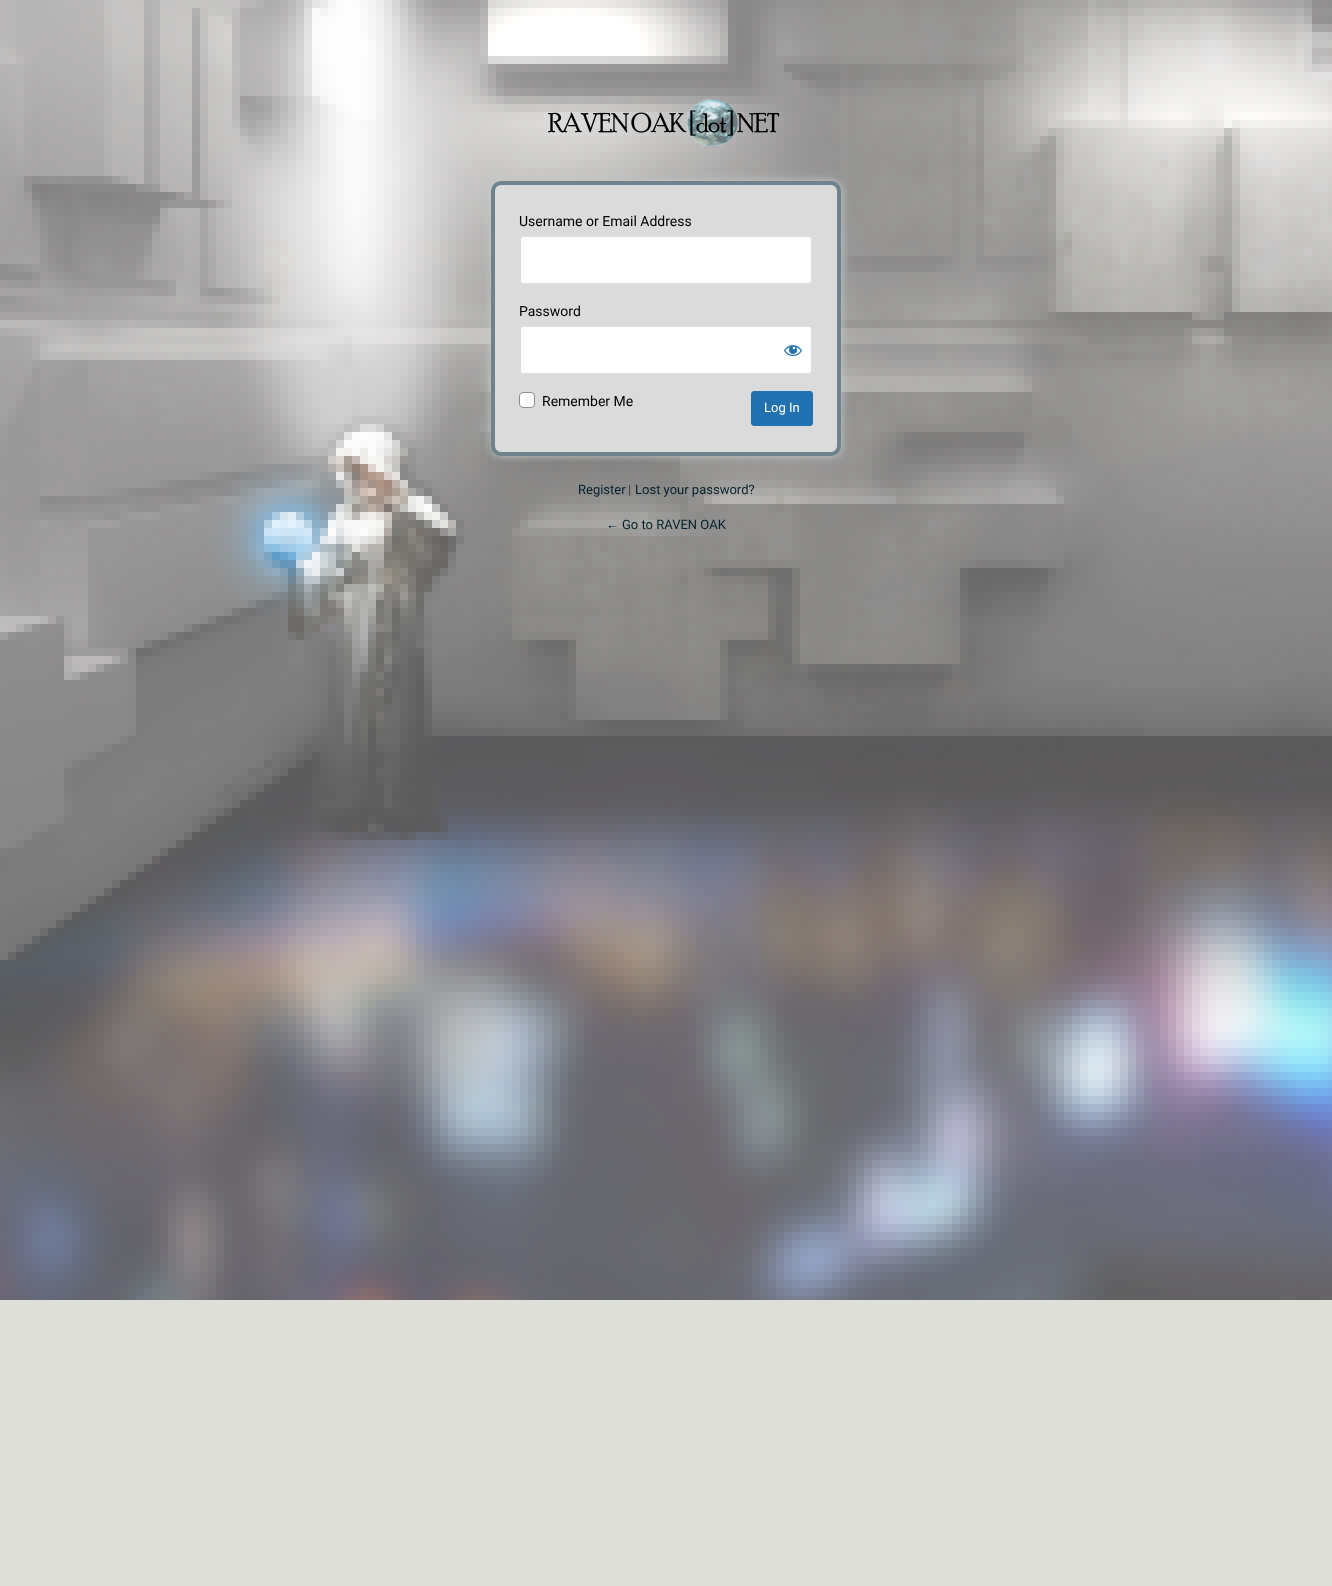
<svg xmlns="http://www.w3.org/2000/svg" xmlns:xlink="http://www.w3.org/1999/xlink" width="1332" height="1586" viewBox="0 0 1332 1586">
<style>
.cls-1{font:14px Roboto;fill:#000000}
.cls-2{font:13px Roboto;fill:#ffffff}
.cls-3{font:13px Roboto;fill:#06212d}
.cls-4{font:13px Roboto;fill:#3c434a}
.cls-5{font:13px Liberation Sans;fill:#06212d}
</style>
<rect width="100%" height="100%" fill="#dedfd8"/>
<image xlink:href="image0.png" x="0" y="0" width="1332" height="1300"/>
<image xlink:href="image1.png" x="548" y="99" width="232" height="47"/>
<rect fill="#c8c8c8" filter="blur(5px)" x="491" y="181" width="350" height="275" rx="10"/>
<rect fill="#dbdbdb" stroke="#6e838e" stroke-width="4" x="493" y="183" width="346" height="271" rx="8"/>
<rect fill="#ffffff" stroke="#dddddd" stroke-width="2" x="520" y="236" width="292" height="48" rx="3"/>
<rect fill="#ffffff" stroke="#dddddd" stroke-width="2" x="520" y="326" width="292" height="48" rx="3"/>
<image xlink:href="image2.png" x="784" y="345" width="18" height="12"/>
<rect fill="#ffffff" stroke="#8c8f94" x="519.5" y="392.5" width="15" height="15" rx="3.5"/>
<rect fill="#2271b1" stroke="#2271b1" x="751.5" y="391.5" width="61" height="34" rx="2.5"/>
<text class="cls-1" x="519" y="226">Username or Email Address</text>
<text class="cls-1" x="519" y="316">Password</text>
<text class="cls-1" x="542" y="406">Remember Me</text>
<text class="cls-2" x="764" y="412">Log In</text>
<text class="cls-3" x="578" y="494">Register</text>
<text class="cls-4" x="628" y="494">|</text>
<text class="cls-3" x="635" y="494">Lost your password?</text>
<text class="cls-5" x="606" y="529">←</text>
<text class="cls-3" x="622" y="529">Go to RAVEN OAK</text>
</svg>
